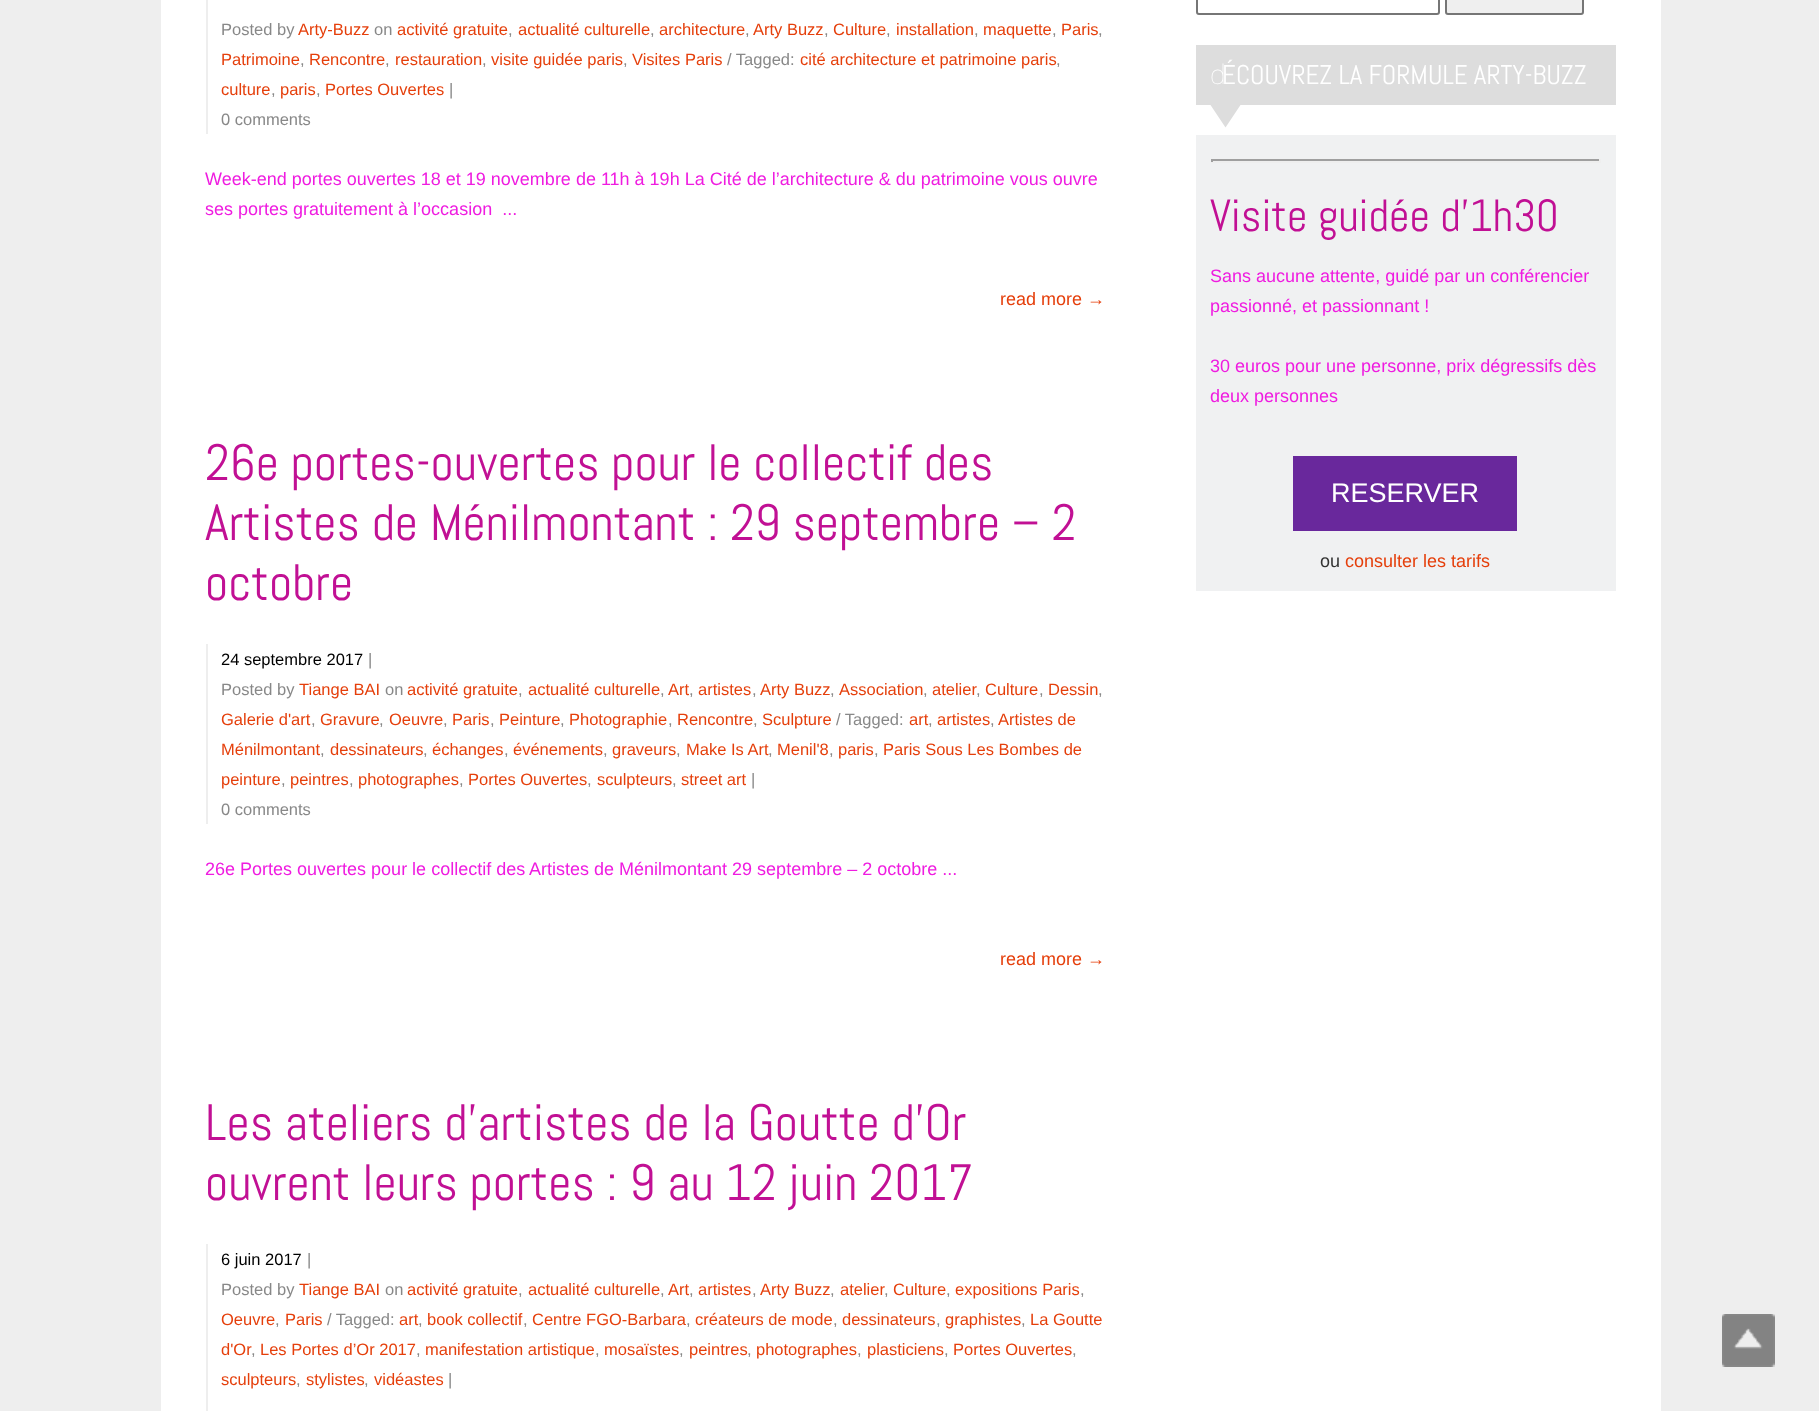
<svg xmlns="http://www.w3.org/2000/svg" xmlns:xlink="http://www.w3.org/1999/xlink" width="1819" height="1411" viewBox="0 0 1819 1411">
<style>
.cls-1{font:16.5px Liberation Sans;fill:#888888}
.cls-2{font:16.5px Liberation Sans;fill:#e53f0b}
.cls-3{font:18px Liberation Sans;fill:#ef1ce0}
.cls-4{font:18px Liberation Sans;fill:#e53f0b}
.cls-5{font:51px Abel;fill:#c11094}
.cls-6{font:16.5px Liberation Sans;fill:#000000}
.cls-7{font:100 27px Noto Sans;fill:#ffffff}
.cls-8{font:27px Abel;fill:#ffffff}
.cls-9{font:45px Abel;fill:#c11094}
.cls-10{font:27px Liberation Sans;fill:#ffffff}
.cls-11{font:18px Liberation Sans;fill:#333333}
</style>
<rect width="100%" height="100%" fill="#eeeeee"/>
<rect fill="#ffffff" x="161" y="0" width="1500" height="1411"/>
<rect fill="#eeeeee" x="206" y="0" width="2" height="134"/>
<rect fill="#eeeeee" x="206" y="644" width="2" height="180"/>
<rect fill="#eeeeee" x="206" y="1244" width="2" height="167"/>
<rect fill="none" stroke="#767676" stroke-width="2" x="1197" y="-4" width="242" height="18" rx="2"/>
<rect fill="#efefef" stroke="#767676" stroke-width="2" x="1446" y="-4" width="137" height="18" rx="2"/>
<rect fill="#dddddd" x="1196" y="45" width="420" height="60"/>
<path fill="#dddddd" d="M1210.5 105H1240.5L1225.5 127.5Z"/>
<rect fill="#f0f1f2" x="1196" y="135" width="420" height="456"/>
<rect fill="#9f9f9f" x="1211" y="159" width="390" height="2"/>
<rect fill="#eeeeee" x="1599" y="159" width="2" height="3"/>
<rect fill="#eeeeee" x="1211" y="161" width="390" height="2"/>
<rect fill="#9f9f9f" x="1211" y="159" width="2" height="3"/>
<rect fill="#69289c" x="1293" y="456" width="224" height="75"/>
<image xlink:href="image0.png" x="1722" y="1314" width="53" height="53"/>
<text class="cls-1" x="221" y="35">Posted by</text>
<text class="cls-2" x="298" y="35">Arty-Buzz</text>
<text class="cls-1" x="374" y="35">on</text>
<text class="cls-2" x="397" y="35">activité gratuite</text>
<text class="cls-1" x="508" y="35">,</text>
<text class="cls-2" x="518" y="35">actualité culturelle</text>
<text class="cls-1" x="650" y="35">,</text>
<text class="cls-2" x="659" y="35">architecture</text>
<text class="cls-1" x="745" y="35">,</text>
<text class="cls-2" x="753" y="35">Arty Buzz</text>
<text class="cls-1" x="824" y="35">,</text>
<text class="cls-2" x="833" y="35">Culture</text>
<text class="cls-1" x="886" y="35">,</text>
<text class="cls-2" x="896" y="35">installation</text>
<text class="cls-1" x="974" y="35">,</text>
<text class="cls-2" x="983" y="35">maquette</text>
<text class="cls-1" x="1052" y="35">,</text>
<text class="cls-2" x="1061" y="35">Paris</text>
<text class="cls-1" x="1098" y="35">,</text>
<text class="cls-2" x="221" y="65">Patrimoine</text>
<text class="cls-1" x="300" y="65">,</text>
<text class="cls-2" x="309" y="65">Rencontre</text>
<text class="cls-1" x="385" y="65">,</text>
<text class="cls-2" x="395" y="65">restauration</text>
<text class="cls-1" x="482" y="65">,</text>
<text class="cls-2" x="491" y="65">visite guidée paris</text>
<text class="cls-1" x="623" y="65">,</text>
<text class="cls-2" x="632" y="65">Visites Paris</text>
<text class="cls-1" x="727" y="65">/ Tagged:</text>
<text class="cls-2" x="800" y="65">cité architecture et patrimoine paris</text>
<text class="cls-1" x="1056" y="65">,</text>
<text class="cls-2" x="221" y="95">culture</text>
<text class="cls-1" x="271" y="95">,</text>
<text class="cls-2" x="280" y="95">paris</text>
<text class="cls-1" x="316" y="95">,</text>
<text class="cls-2" x="325" y="95">Portes Ouvertes</text>
<text class="cls-1" x="449" y="95">|</text>
<text class="cls-1" x="221" y="125">0 comments</text>
<text class="cls-3" xml:space="preserve"><tspan x="205" y="185">Week-end portes ouvertes 18 et 19 novembre de 11h à 19h La Cité de l’architecture &amp; du patrimoine vous ouvre</tspan><tspan x="205" y="215">ses portes gratuitement à l’occasion  ...</tspan></text>
<text class="cls-4" x="1000" y="305">read more →</text>
<text class="cls-5"><tspan x="205" y="480">26e portes-ouvertes pour le collectif des</tspan><tspan x="205" y="540">Artistes de Ménilmontant : 29 septembre – 2</tspan><tspan x="205" y="600">octobre</tspan></text>
<text class="cls-6" x="221" y="665">24 septembre 2017</text>
<text class="cls-1" x="368" y="665">|</text>
<text class="cls-1" x="221" y="695">Posted by</text>
<text class="cls-2" x="299" y="695">Tiange BAI</text>
<text class="cls-1" x="385" y="695">on</text>
<text class="cls-2" x="407" y="695">activité gratuite</text>
<text class="cls-1" x="518" y="695">,</text>
<text class="cls-2" x="528" y="695">actualité culturelle</text>
<text class="cls-1" x="660" y="695">,</text>
<text class="cls-2" x="668" y="695">Art</text>
<text class="cls-1" x="689" y="695">,</text>
<text class="cls-2" x="698" y="695">artistes</text>
<text class="cls-1" x="752" y="695">,</text>
<text class="cls-2" x="760" y="695">Arty Buzz</text>
<text class="cls-1" x="830" y="695">,</text>
<text class="cls-2" x="839" y="695">Association</text>
<text class="cls-1" x="923" y="695">,</text>
<text class="cls-2" x="932" y="695">atelier</text>
<text class="cls-1" x="976" y="695">,</text>
<text class="cls-2" x="985" y="695">Culture</text>
<text class="cls-1" x="1039" y="695">,</text>
<text class="cls-2" x="1048" y="695">Dessin</text>
<text class="cls-1" x="1098" y="695">,</text>
<text class="cls-2" x="221" y="725">Galerie d'art</text>
<text class="cls-1" x="311" y="725">,</text>
<text class="cls-2" x="320" y="725">Gravure</text>
<text class="cls-1" x="379" y="725">,</text>
<text class="cls-2" x="389" y="725">Oeuvre</text>
<text class="cls-1" x="443" y="725">,</text>
<text class="cls-2" x="452" y="725">Paris</text>
<text class="cls-1" x="490" y="725">,</text>
<text class="cls-2" x="499" y="725">Peinture</text>
<text class="cls-1" x="560" y="725">,</text>
<text class="cls-2" x="569" y="725">Photographie</text>
<text class="cls-1" x="668" y="725">,</text>
<text class="cls-2" x="677" y="725">Rencontre</text>
<text class="cls-1" x="753" y="725">,</text>
<text class="cls-2" x="762" y="725">Sculpture</text>
<text class="cls-1" x="836" y="725">/ Tagged:</text>
<text class="cls-2" x="909" y="725">art</text>
<text class="cls-1" x="928" y="725">,</text>
<text class="cls-2" x="937" y="725">artistes</text>
<text class="cls-1" x="990" y="725">,</text>
<text class="cls-2" x="998" y="725">Artistes de</text>
<text class="cls-2" x="221" y="755">Ménilmontant</text>
<text class="cls-1" x="320" y="755">,</text>
<text class="cls-2" x="330" y="755">dessinateurs</text>
<text class="cls-1" x="423" y="755">,</text>
<text class="cls-2" x="432" y="755">échanges</text>
<text class="cls-1" x="504" y="755">,</text>
<text class="cls-2" x="513" y="755">événements</text>
<text class="cls-1" x="603" y="755">,</text>
<text class="cls-2" x="612" y="755">graveurs</text>
<text class="cls-1" x="676" y="755">,</text>
<text class="cls-2" x="686" y="755">Make Is Art</text>
<text class="cls-1" x="768" y="755">,</text>
<text class="cls-2" x="777" y="755">Menil'8</text>
<text class="cls-1" x="829" y="755">,</text>
<text class="cls-2" x="838" y="755">paris</text>
<text class="cls-1" x="874" y="755">,</text>
<text class="cls-2" x="883" y="755">Paris Sous Les Bombes de</text>
<text class="cls-2" x="221" y="785">peinture</text>
<text class="cls-1" x="281" y="785">,</text>
<text class="cls-2" x="290" y="785">peintres</text>
<text class="cls-1" x="349" y="785">,</text>
<text class="cls-2" x="358" y="785">photographes</text>
<text class="cls-1" x="459" y="785">,</text>
<text class="cls-2" x="468" y="785">Portes Ouvertes</text>
<text class="cls-1" x="587" y="785">,</text>
<text class="cls-2" x="597" y="785">sculpteurs</text>
<text class="cls-1" x="672" y="785">,</text>
<text class="cls-2" x="681" y="785">street art</text>
<text class="cls-1" x="751" y="785">|</text>
<text class="cls-1" x="221" y="815">0 comments</text>
<text class="cls-3" x="205" y="875">26e Portes ouvertes pour le collectif des</text>
<text class="cls-3" x="529" y="875">Artistes de Ménilmontant 29 septembre – 2 octobre ...</text>
<text class="cls-4" x="1000" y="965">read more →</text>
<text class="cls-5"><tspan x="205" y="1140">Les ateliers d’artistes de la Goutte d’Or</tspan><tspan x="205" y="1200">ouvrent leurs portes : 9 au 12 juin 2017</tspan></text>
<text class="cls-6" x="221" y="1265">6 juin 2017</text>
<text class="cls-1" x="307" y="1265">|</text>
<text class="cls-1" x="221" y="1295">Posted by</text>
<text class="cls-2" x="299" y="1295">Tiange BAI</text>
<text class="cls-1" x="385" y="1295">on</text>
<text class="cls-2" x="407" y="1295">activité gratuite</text>
<text class="cls-1" x="518" y="1295">,</text>
<text class="cls-2" x="528" y="1295">actualité culturelle</text>
<text class="cls-1" x="660" y="1295">,</text>
<text class="cls-2" x="668" y="1295">Art</text>
<text class="cls-1" x="689" y="1295">,</text>
<text class="cls-2" x="698" y="1295">artistes</text>
<text class="cls-1" x="752" y="1295">,</text>
<text class="cls-2" x="760" y="1295">Arty Buzz</text>
<text class="cls-1" x="830" y="1295">,</text>
<text class="cls-2" x="840" y="1295">atelier</text>
<text class="cls-1" x="884" y="1295">,</text>
<text class="cls-2" x="893" y="1295">Culture</text>
<text class="cls-1" x="946" y="1295">,</text>
<text class="cls-2" x="955" y="1295">expositions Paris</text>
<text class="cls-1" x="1080" y="1295">,</text>
<text class="cls-2" x="221" y="1325">Oeuvre</text>
<text class="cls-1" x="275" y="1325">,</text>
<text class="cls-2" x="285" y="1325">Paris</text>
<text class="cls-1" x="327" y="1325">/ Tagged:</text>
<text class="cls-2" x="399" y="1325">art</text>
<text class="cls-1" x="418" y="1325">,</text>
<text class="cls-2" x="427" y="1325">book collectif</text>
<text class="cls-1" x="523" y="1325">,</text>
<text class="cls-2" x="532" y="1325">Centre FGO-Barbara</text>
<text class="cls-1" x="686" y="1325">,</text>
<text class="cls-2" x="695" y="1325">créateurs de mode</text>
<text class="cls-1" x="833" y="1325">,</text>
<text class="cls-2" x="842" y="1325">dessinateurs</text>
<text class="cls-1" x="936" y="1325">,</text>
<text class="cls-2" x="945" y="1325">graphistes</text>
<text class="cls-1" x="1021" y="1325">,</text>
<text class="cls-2" x="1030" y="1325">La Goutte</text>
<text class="cls-2" x="221" y="1355">d'Or</text>
<text class="cls-1" x="251" y="1355">,</text>
<text class="cls-2" x="260" y="1355">Les Portes d’Or 2017</text>
<text class="cls-1" x="416" y="1355">,</text>
<text class="cls-2" x="425" y="1355">manifestation artistique</text>
<text class="cls-1" x="595" y="1355">,</text>
<text class="cls-2" x="604" y="1355">mosaïstes</text>
<text class="cls-1" x="679" y="1355">,</text>
<text class="cls-2" x="689" y="1355">peintres</text>
<text class="cls-1" x="747" y="1355">,</text>
<text class="cls-2" x="756" y="1355">photographes</text>
<text class="cls-1" x="857" y="1355">,</text>
<text class="cls-2" x="867" y="1355">plasticiens</text>
<text class="cls-1" x="944" y="1355">,</text>
<text class="cls-2" x="953" y="1355">Portes Ouvertes</text>
<text class="cls-1" x="1072" y="1355">,</text>
<text class="cls-2" x="221" y="1385">sculpteurs</text>
<text class="cls-1" x="296" y="1385">,</text>
<text class="cls-2" x="306" y="1385">stylistes</text>
<text class="cls-1" x="364" y="1385">,</text>
<text class="cls-2" x="374" y="1385">vidéastes</text>
<text class="cls-1" x="448" y="1385">|</text>
<text class="cls-7" x="1210" y="84">d</text>
<text class="cls-8" x="1222" y="84">ÉCOUVREZ LA FORMULE ARTY-BUZZ</text>
<text class="cls-9" x="1210" y="231">Visite guidée d'1h30</text>
<text class="cls-3"><tspan x="1210" y="282">Sans aucune attente, guidé par un conférencier</tspan><tspan x="1210" y="312">passionné, et passionnant !</tspan></text>
<text class="cls-3"><tspan x="1210" y="372">30 euros pour une personne, prix dégressifs dès</tspan><tspan x="1210" y="402">deux personnes</tspan></text>
<text class="cls-10" x="1331" y="502">RESERVER</text>
<text class="cls-11" x="1320" y="567">ou</text>
<text class="cls-4" x="1345" y="567">consulter les tarifs</text>
</svg>
